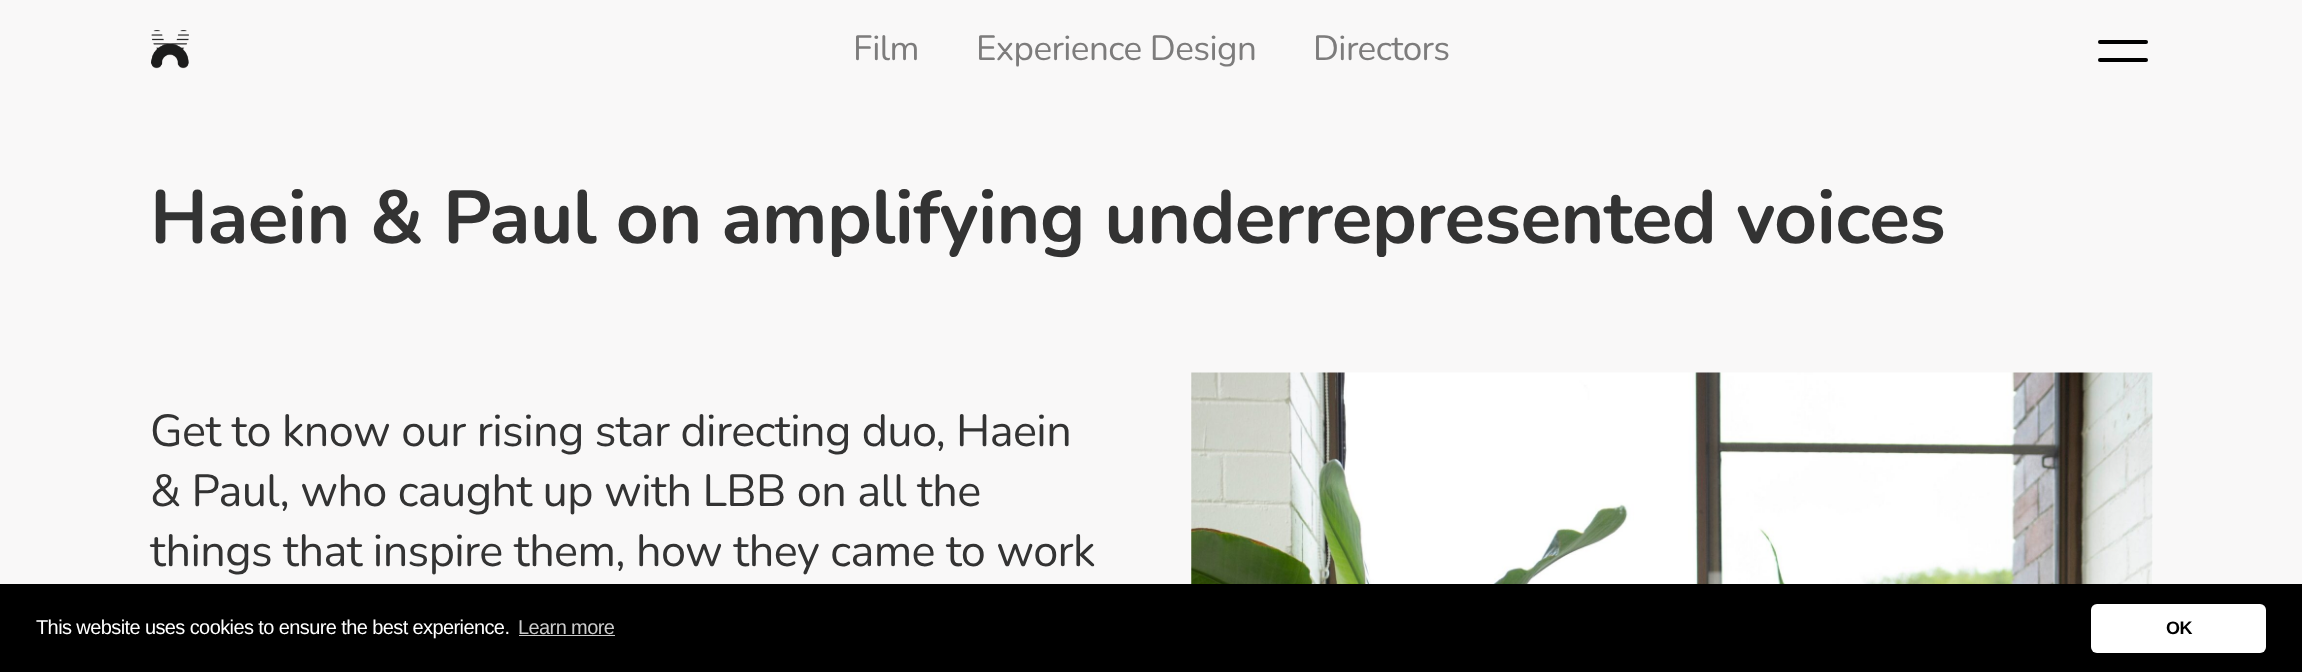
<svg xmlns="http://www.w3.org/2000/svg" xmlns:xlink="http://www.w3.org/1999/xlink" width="2302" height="672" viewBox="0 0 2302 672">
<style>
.cls-1{font:35px Nunito;letter-spacing:-0.6px;fill:#7d7c7c}
.cls-2{font:bold 75px Nunito;letter-spacing:-0.6px;fill:#333333}
.cls-3{font:45px Nunito;letter-spacing:-0.6px;fill:#333333}
.cls-4{font:20px Liberation Sans;letter-spacing:-0.6px;fill:#ffffff}
.cls-5{font:20px Liberation Sans;letter-spacing:-0.6px;fill:#cccccc}
.cls-6{font:bold 18px Liberation Sans;letter-spacing:-0.6px;fill:#000000}
</style>
<rect width="100%" height="100%" fill="#f9f8f8"/>
<image xlink:href="image0.png" x="151" y="30" width="38" height="39"/>
<rect fill="#000000" x="2098" y="40" width="50" height="4" rx="2"/>
<rect fill="#000000" x="2098" y="58" width="50" height="4" rx="2"/>
<rect fill="#ffffff" x="1191" y="373" width="962" height="211"/>
<image xlink:href="image1.png" x="1191" y="372" width="962" height="212"/>
<rect fill="#000000" x="0" y="584" width="2302" height="88"/>
<rect fill="#cccccc" x="519" y="635" width="96" height="1"/>
<rect fill="#ffffff" x="2091" y="604" width="175" height="49" rx="6"/>
<text class="cls-1" x="853" y="60">Film</text>
<text class="cls-1" x="976" y="60">Experience Design</text>
<text class="cls-1" x="1313" y="60">Directors</text>
<text class="cls-2" x="150" y="243">Haein &amp; Paul on amplifying underrepresented voices</text>
<text class="cls-3"><tspan x="150" y="446">Get to know our rising star directing duo, Haein</tspan><tspan x="150" y="506">&amp; Paul, who caught up with LBB on all the</tspan><tspan x="150" y="566">things that inspire them, how they came to work</tspan></text>
<text class="cls-4" x="36" y="634">This website uses cookies to ensure the best experience.</text>
<text class="cls-5" x="518" y="634">Learn more</text>
<text class="cls-6" x="2166" y="634">OK</text>
</svg>
